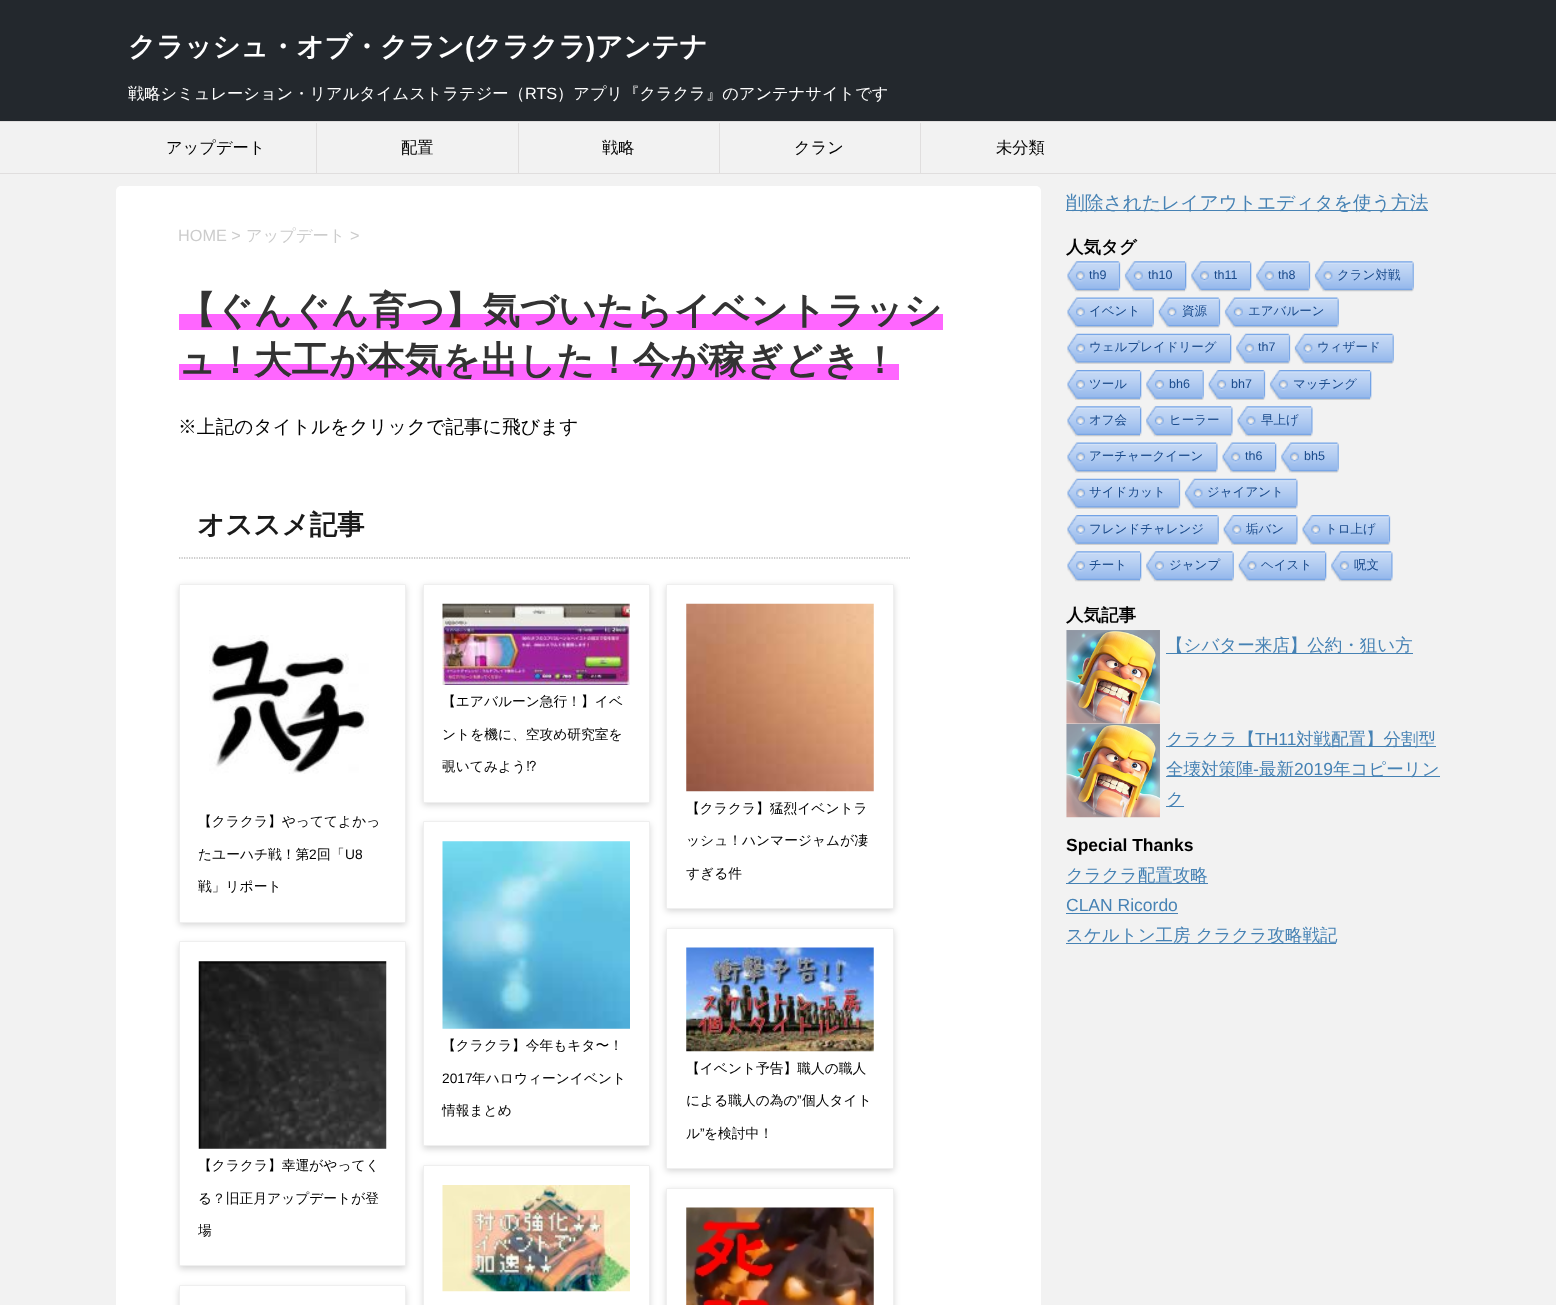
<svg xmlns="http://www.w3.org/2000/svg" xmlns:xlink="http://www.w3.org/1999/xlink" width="1556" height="1305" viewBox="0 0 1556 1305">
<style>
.cls-1{font:bold 27.5px WenQuanYi Zen Hei;fill:#ffffff}
.cls-2{font:bold 27.5px Liberation Sans;fill:#ffffff}
.cls-3{font:500 16.25px WenQuanYi Zen Hei;fill:#ffffff}
.cls-4{font:16.25px Liberation Sans;fill:#ffffff}
.cls-5{font:500 16.25px WenQuanYi Zen Hei;fill:#000000}
.cls-6{font:16.25px Liberation Sans;fill:#cccccc}
.cls-7{font:500 16.25px WenQuanYi Zen Hei;fill:#cccccc}
.cls-8{font:bold 37.5px WenQuanYi Zen Hei;fill:#333333}
.cls-9{font:500 18.75px WenQuanYi Zen Hei;fill:#000000}
.cls-10{font:bold 27.5px WenQuanYi Zen Hei;fill:#1a1a1a}
.cls-11{font:500 13.75px WenQuanYi Zen Hei;fill:#000000}
.cls-12{font:13.75px Liberation Sans;fill:#000000}
.cls-13{font:13.75px IPAPGothic;fill:#000000}
.cls-14{font:500 18.75px WenQuanYi Zen Hei;fill:#4682b4}
.cls-15{font:bold 17.5px WenQuanYi Zen Hei;fill:#000000}
.cls-16{font:12.5px Liberation Sans;fill:#194a8b}
.cls-17{font:500 12.5px WenQuanYi Zen Hei;fill:#194a8b}
.cls-18{font:500 17.5px WenQuanYi Zen Hei;fill:#4682b4}
.cls-19{font:17.5px Liberation Sans;fill:#4682b4}
.cls-20{font:bold 17.5px Liberation Sans;fill:#000000}
</style>
<defs>
<clipPath id="clip1"><path d="M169 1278H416V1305H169ZM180 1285H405C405.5 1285 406 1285.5 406 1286V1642C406 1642.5 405.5 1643 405 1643H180C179.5 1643 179 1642.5 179 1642V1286C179 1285.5 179.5 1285 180 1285Z" clip-rule="evenodd"/></clipPath>
<clipPath id="clip2"><path d="M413 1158H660V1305H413ZM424 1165H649C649.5 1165 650 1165.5 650 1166V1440C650 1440.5 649.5 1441 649 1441H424C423.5 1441 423 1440.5 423 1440V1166C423 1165.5 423.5 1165 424 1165Z" clip-rule="evenodd"/></clipPath>
</defs>
<rect width="100%" height="100%" fill="#f2f2f2"/>
<rect fill="#23282d" x="0" y="0" width="1556" height="121"/>
<rect fill="#e0dede" x="0" y="121" width="1556" height="1"/>
<rect fill="#e0dede" x="0" y="173" width="1556" height="1"/>
<rect fill="#e0dede" x="316" y="123" width="1" height="50"/>
<rect fill="#e0dede" x="518" y="123" width="1" height="50"/>
<rect fill="#e0dede" x="719" y="123" width="1" height="50"/>
<rect fill="#e0dede" x="920" y="123" width="1" height="50"/>
<rect fill="#ffffff" x="116" y="186" width="925" height="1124" rx="5"/>
<rect fill="#ff66ff" x="179" y="314" width="764" height="16"/>
<rect fill="#ff66ff" x="179" y="364" width="720" height="16"/>
<path fill="none" stroke="#999999" stroke-width="1.2" stroke-dasharray="1.25 1.25" d="M179 558H910"/>
<rect fill="#000000" fill-opacity="0.16" filter="blur(3px)" x="179" y="586" width="227" height="339" rx="1"/>
<rect fill="#ffffff" stroke="#efefef" x="179.5" y="584.5" width="226" height="338" rx="0.5"/>
<image xlink:href="image0.png" x="209" y="635" width="160" height="139"/>
<rect fill="#000000" fill-opacity="0.16" filter="blur(3px)" x="179" y="944" width="227" height="325" rx="1"/>
<rect fill="#ffffff" stroke="#efefef" x="179.5" y="941.5" width="226" height="324" rx="0.5"/>
<image xlink:href="image1.png" x="198" y="961" width="189" height="188"/>
<g clip-path="url(#clip1)">
<rect fill="#000000" fill-opacity="0.16" filter="blur(3px)" x="179" y="1288" width="227" height="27" rx="1"/>
</g>
<rect fill="none" stroke="#efefef" x="179.5" y="1285.5" width="226" height="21" rx="0.5"/>
<rect fill="#000000" fill-opacity="0.16" filter="blur(3px)" x="423" y="586" width="227" height="219" rx="1"/>
<rect fill="#ffffff" stroke="#efefef" x="423.5" y="584.5" width="226" height="218" rx="0.5"/>
<image xlink:href="image2.png" x="442" y="603" width="188" height="82"/>
<rect fill="#000000" fill-opacity="0.16" filter="blur(3px)" x="423" y="824" width="227" height="325" rx="1"/>
<rect fill="#ffffff" stroke="#efefef" x="423.5" y="821.5" width="226" height="324" rx="0.5"/>
<image xlink:href="image3.png" x="442" y="841" width="188" height="188"/>
<g clip-path="url(#clip2)">
<rect fill="#000000" fill-opacity="0.16" filter="blur(3px)" x="423" y="1168" width="227" height="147" rx="1"/>
</g>
<rect fill="none" stroke="#efefef" x="423.5" y="1165.5" width="226" height="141" rx="0.5"/>
<image xlink:href="image4.png" x="442" y="1185" width="188" height="107"/>
<rect fill="#000000" fill-opacity="0.16" filter="blur(3px)" x="666" y="586" width="228" height="325" rx="1"/>
<rect fill="#ffffff" stroke="#efefef" x="666.5" y="584.5" width="227" height="324" rx="0.5"/>
<image xlink:href="image5.png" x="686" y="603" width="188" height="189"/>
<rect fill="#000000" fill-opacity="0.16" filter="blur(3px)" x="666" y="930" width="228" height="241" rx="1"/>
<rect fill="#ffffff" stroke="#efefef" x="666.5" y="928.5" width="227" height="240" rx="0.5"/>
<image xlink:href="image6.png" x="686" y="947" width="188" height="105"/>
<rect fill="#000000" fill-opacity="0.16" filter="blur(3px)" x="666" y="1190" width="228" height="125" rx="1"/>
<rect fill="#ffffff" stroke="#efefef" x="666.5" y="1188.5" width="227" height="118" rx="0.5"/>
<image xlink:href="image7.png" x="686" y="1207" width="188" height="98"/>
<rect fill="#4682b4" x="1066" y="210" width="362" height="1"/>
<image xlink:href="image8.png" x="1067" y="261" width="52" height="31"/>
<image xlink:href="image9.png" x="1118" y="261" width="3" height="30"/>
<image xlink:href="image10.png" x="1124" y="261" width="61" height="31"/>
<image xlink:href="image11.png" x="1185" y="261" width="2" height="30"/>
<image xlink:href="image12.png" x="1191" y="261" width="59" height="31"/>
<image xlink:href="image11.png" x="1250" y="261" width="2" height="30"/>
<image xlink:href="image13.png" x="1256" y="261" width="53" height="31"/>
<image xlink:href="image9.png" x="1308" y="261" width="3" height="30"/>
<image xlink:href="image14.png" x="1314" y="261" width="99" height="31"/>
<image xlink:href="image15.png" x="1412" y="262" width="2" height="29"/>
<image xlink:href="image16.png" x="1067" y="297" width="86" height="31"/>
<image xlink:href="image17.png" x="1152" y="298" width="2" height="29"/>
<image xlink:href="image18.png" x="1158" y="297" width="61" height="31"/>
<image xlink:href="image19.png" x="1218" y="298" width="3" height="29"/>
<image xlink:href="image20.png" x="1224" y="297" width="114" height="31"/>
<image xlink:href="image17.png" x="1337" y="298" width="2" height="29"/>
<image xlink:href="image21.png" x="1067" y="333" width="163" height="31"/>
<image xlink:href="image22.png" x="1230" y="334" width="2" height="30"/>
<image xlink:href="image23.png" x="1236" y="333" width="53" height="31"/>
<image xlink:href="image24.png" x="1288" y="334" width="3" height="30"/>
<image xlink:href="image25.png" x="1294" y="333" width="99" height="31"/>
<image xlink:href="image26.png" x="1392" y="334" width="2" height="29"/>
<image xlink:href="image27.png" x="1067" y="370" width="73" height="30"/>
<image xlink:href="image28.png" x="1140" y="370" width="2" height="30"/>
<image xlink:href="image29.png" x="1146" y="370" width="57" height="30"/>
<image xlink:href="image30.png" x="1202" y="370" width="2" height="30"/>
<image xlink:href="image31.png" x="1208" y="370" width="56" height="30"/>
<image xlink:href="image32.png" x="1263" y="370" width="3" height="30"/>
<image xlink:href="image33.png" x="1269" y="370" width="101" height="30"/>
<image xlink:href="image28.png" x="1370" y="370" width="2" height="30"/>
<image xlink:href="image34.png" x="1067" y="406" width="73" height="31"/>
<image xlink:href="image11.png" x="1140" y="406" width="2" height="30"/>
<image xlink:href="image35.png" x="1146" y="406" width="86" height="31"/>
<image xlink:href="image36.png" x="1231" y="407" width="2" height="29"/>
<image xlink:href="image37.png" x="1237" y="406" width="75" height="31"/>
<image xlink:href="image36.png" x="1311" y="407" width="2" height="29"/>
<image xlink:href="image38.png" x="1067" y="442" width="150" height="31"/>
<image xlink:href="image39.png" x="1216" y="443" width="2" height="29"/>
<image xlink:href="image40.png" x="1222" y="442" width="53" height="31"/>
<image xlink:href="image41.png" x="1275" y="443" width="2" height="29"/>
<image xlink:href="image42.png" x="1281" y="442" width="57" height="31"/>
<image xlink:href="image17.png" x="1337" y="443" width="2" height="29"/>
<image xlink:href="image43.png" x="1067" y="478" width="112" height="31"/>
<image xlink:href="image24.png" x="1178" y="479" width="3" height="30"/>
<image xlink:href="image44.png" x="1184" y="478" width="113" height="31"/>
<image xlink:href="image45.png" x="1296" y="479" width="2" height="29"/>
<image xlink:href="image46.png" x="1067" y="515" width="151" height="30"/>
<image xlink:href="image30.png" x="1217" y="515" width="2" height="30"/>
<image xlink:href="image47.png" x="1223" y="515" width="74" height="30"/>
<image xlink:href="image48.png" x="1296" y="515" width="2" height="30"/>
<image xlink:href="image49.png" x="1302" y="515" width="87" height="30"/>
<image xlink:href="image32.png" x="1388" y="515" width="3" height="30"/>
<image xlink:href="image34.png" x="1067" y="551" width="73" height="31"/>
<image xlink:href="image11.png" x="1140" y="551" width="2" height="30"/>
<image xlink:href="image50.png" x="1146" y="551" width="87" height="31"/>
<image xlink:href="image15.png" x="1232" y="552" width="2" height="29"/>
<image xlink:href="image51.png" x="1238" y="551" width="87" height="31"/>
<image xlink:href="image11.png" x="1325" y="551" width="2" height="30"/>
<image xlink:href="image52.png" x="1331" y="551" width="61" height="31"/>
<image xlink:href="image36.png" x="1391" y="552" width="2" height="29"/>
<image xlink:href="image53.png" x="1066" y="630" width="94" height="94"/>
<rect fill="#4682b4" x="1166" y="653" width="247" height="1"/>
<image xlink:href="image54.png" x="1066" y="723" width="94" height="95"/>
<rect fill="#4682b4" x="1166" y="746" width="270" height="1"/>
<rect fill="#4682b4" x="1166" y="776" width="274" height="1"/>
<rect fill="#4682b4" x="1166" y="806" width="18" height="1"/>
<rect fill="#4682b4" x="1066" y="883" width="142" height="1"/>
<rect fill="#4682b4" x="1066" y="913" width="112" height="1"/>
<rect fill="#4682b4" x="1066" y="943" width="270" height="1"/>
<text class="cls-1" x="128" y="56">クラッシュ・オブ・クラン</text>
<text class="cls-2" x="465" y="56">(</text>
<text class="cls-1" x="474" y="56">クラクラ</text>
<text class="cls-2" x="586" y="56">)</text>
<text class="cls-1" x="595" y="56">アンテナ</text>
<text class="cls-3" x="128" y="99">戦略シミュレーション・リアルタイムストラテジー（</text>
<text class="cls-4" x="525" y="99">RTS</text>
<text class="cls-3" x="557" y="99">）アプリ『クラクラ』のアンテナサイトです</text>
<text class="cls-5" x="166" y="153">アップデート</text>
<text class="cls-5" x="401" y="153">配置</text>
<text class="cls-5" x="602" y="153">戦略</text>
<text class="cls-5" x="794" y="153">クラン</text>
<text class="cls-5" x="996" y="153">未分類</text>
<text class="cls-6" x="178" y="241">HOME &gt;</text>
<text class="cls-7" x="246" y="241">アップデート</text>
<text class="cls-6" x="350" y="241">&gt;</text>
<text class="cls-8"><tspan x="178" y="323">【ぐんぐん育つ】気づいたらイベントラッシ</tspan><tspan x="178" y="373">ュ！大工が本気を出した！今が稼ぎどき！</tspan></text>
<text class="cls-9" x="178" y="433">※上記のタイトルをクリックで記事に飛びます</text>
<text class="cls-10" x="197" y="534">オススメ記事</text>
<text class="cls-11" x="198" y="826">【クラクラ】やっててよかっ</text>
<text class="cls-11" x="198" y="859">たユーハチ戦！第</text>
<text class="cls-12" x="309" y="859">2</text>
<text class="cls-11" x="317" y="859">回「</text>
<text class="cls-12" x="345" y="859">U8</text>
<text class="cls-11" x="198" y="891">戦」リポート</text>
<text class="cls-11" x="198" y="1170">【クラクラ】幸運がやってく</text>
<text class="cls-11" x="198" y="1203">る？旧正月アップデートが登</text>
<text class="cls-11" x="198" y="1235">場</text>
<text class="cls-11" x="442" y="706">【エアバルーン急行！】イベ</text>
<text class="cls-11" x="442" y="739">ントを機に、空攻め研究室を</text>
<text class="cls-11" x="442" y="771">覗いてみよう</text>
<text class="cls-13" x="526" y="771">⁉︎</text>
<text class="cls-11" x="442" y="1050">【クラクラ】今年もキタ〜！</text>
<text class="cls-12" x="442" y="1083">2017</text>
<text class="cls-11" x="472" y="1083">年ハロウィーンイベント</text>
<text class="cls-11" x="442" y="1115">情報まとめ</text>
<text class="cls-11" x="686" y="813">【クラクラ】猛烈イベントラ</text>
<text class="cls-11" x="686" y="845">ッシュ！ハンマージャムが凄</text>
<text class="cls-11" x="686" y="878">すぎる件</text>
<text class="cls-11" x="686" y="1073">【イベント予告】職人の職人</text>
<text class="cls-11" x="686" y="1105">による職人の為の</text>
<text class="cls-12" x="797" y="1105">”</text>
<text class="cls-11" x="802" y="1105">個人タイト</text>
<text class="cls-11" x="686" y="1138">ル</text>
<text class="cls-12" x="700" y="1138">”</text>
<text class="cls-11" x="704" y="1138">を検討中！</text>
<text class="cls-14" x="1066" y="209">削除されたレイアウトエディタを使う方法</text>
<text class="cls-15" x="1066" y="253">人気タグ</text>
<text class="cls-16" x="1089" y="279">th9</text>
<text class="cls-16" x="1148" y="279">th10</text>
<text class="cls-16" x="1214" y="279">th11</text>
<text class="cls-16" x="1278" y="279">th8</text>
<text class="cls-17" x="1337" y="279">クラン対戦</text>
<text class="cls-17" x="1089" y="315">イベント</text>
<text class="cls-17" x="1182" y="315">資源</text>
<text class="cls-17" x="1248" y="315">エアバルーン</text>
<text class="cls-17" x="1089" y="351">ウェルプレイドリーグ</text>
<text class="cls-16" x="1258" y="351">th7</text>
<text class="cls-17" x="1317" y="351">ウィザード</text>
<text class="cls-17" x="1089" y="388">ツール</text>
<text class="cls-16" x="1169" y="388">bh6</text>
<text class="cls-16" x="1231" y="388">bh7</text>
<text class="cls-17" x="1293" y="388">マッチング</text>
<text class="cls-17" x="1089" y="424">オフ会</text>
<text class="cls-17" x="1169" y="424">ヒーラー</text>
<text class="cls-17" x="1261" y="424">早上げ</text>
<text class="cls-17" x="1089" y="460">アーチャークイーン</text>
<text class="cls-16" x="1245" y="460">th6</text>
<text class="cls-16" x="1304" y="460">bh5</text>
<text class="cls-17" x="1089" y="496">サイドカット</text>
<text class="cls-17" x="1207" y="496">ジャイアント</text>
<text class="cls-17" x="1089" y="533">フレンドチャレンジ</text>
<text class="cls-17" x="1246" y="533">垢バン</text>
<text class="cls-17" x="1325" y="533">トロ上げ</text>
<text class="cls-17" x="1089" y="569">チート</text>
<text class="cls-17" x="1169" y="569">ジャンプ</text>
<text class="cls-17" x="1261" y="569">ヘイスト</text>
<text class="cls-17" x="1354" y="569">呪文</text>
<text class="cls-15" x="1066" y="621">人気記事</text>
<text class="cls-18" x="1166" y="651">【シバター来店】公約・狙い方</text>
<text class="cls-18" x="1166" y="745">クラクラ【</text>
<text class="cls-19" x="1255" y="745">TH11</text>
<text class="cls-18" x="1296" y="745">対戦配置】分割型</text>
<text class="cls-18" x="1166" y="775">全壊対策陣</text>
<text class="cls-19" x="1253" y="775">-</text>
<text class="cls-18" x="1259" y="775">最新</text>
<text class="cls-19" x="1294" y="775">2019</text>
<text class="cls-18" x="1333" y="775">年コピーリン</text>
<text class="cls-18" x="1166" y="805">ク</text>
<text class="cls-20" x="1066" y="851">Special Thanks</text>
<text class="cls-18" x="1066" y="881">クラクラ配置攻略</text>
<text class="cls-19" x="1066" y="911">CLAN Ricordo</text>
<text class="cls-18" x="1066" y="941">スケルトン工房 クラクラ攻略戦記</text>
</svg>
